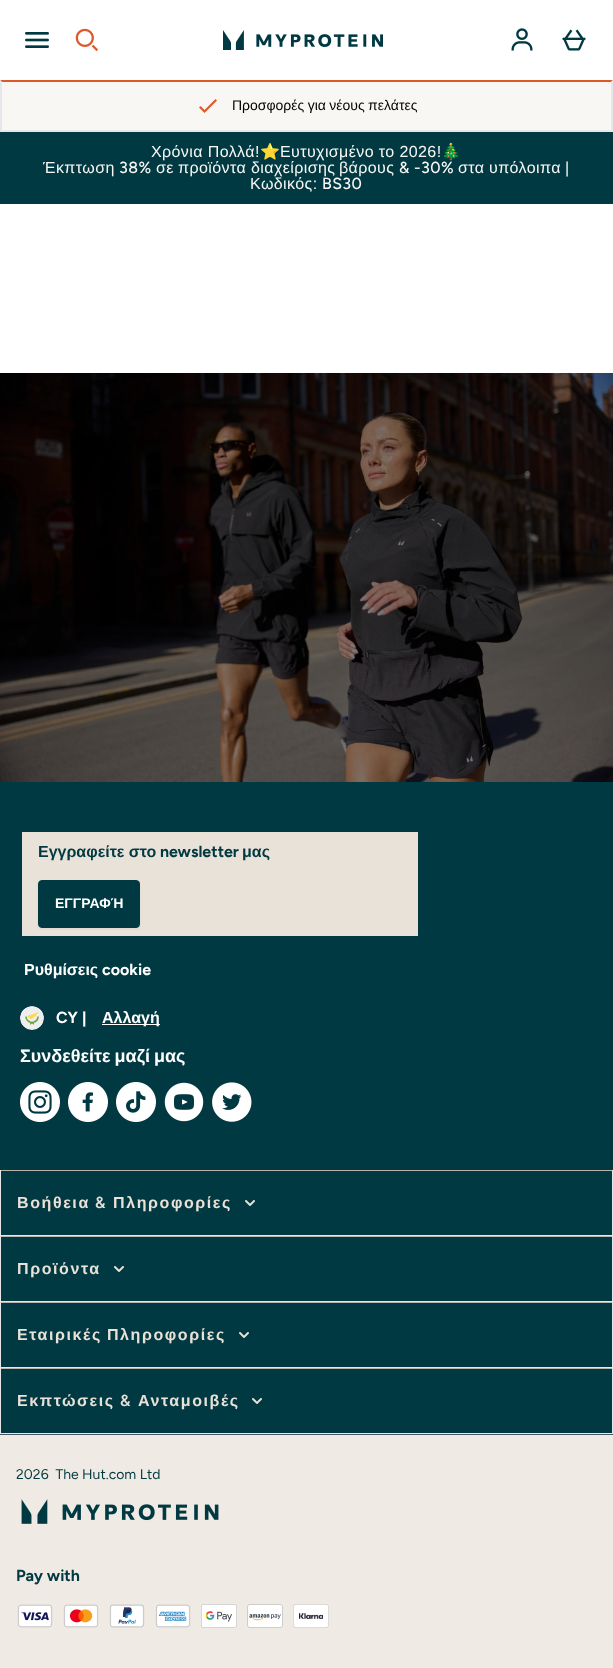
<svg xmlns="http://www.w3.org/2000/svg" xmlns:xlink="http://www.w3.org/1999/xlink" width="613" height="1668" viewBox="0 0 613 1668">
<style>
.cls-1{font:14px Liberation Sans;fill:#000000}
.cls-2{font:16px Liberation Sans;letter-spacing:0.4px;fill:#f8f7f4}
.cls-3{font:16px Noto Color Emoji;letter-spacing:0.4px;fill:#f8f7f4}
.cls-4{font:500 16px Figtree;letter-spacing:0.4px;fill:#f8f7f4}
.cls-5{font:bold 16px Liberation Sans;fill:#003942}
.cls-6{font:bold 16px Figtree;fill:#003942}
.cls-7{font:bold 14px Liberation Sans;fill:#ffffff}
.cls-8{font:bold 16px Liberation Sans;fill:#ffffff}
.cls-9{font:bold 16px Figtree;fill:#ffffff}
.cls-10{font:bold 18px Liberation Sans;fill:#ffffff}
.cls-11{font:bold 16px Liberation Sans;letter-spacing:1.6px;fill:#e9e2d8}
.cls-12{font:600 16px Figtree;letter-spacing:1.6px;fill:#e9e2d8}
.cls-13{font:14px Figtree;fill:#003942}
</style>
<rect width="100%" height="100%" fill="#ffffff"/>
<image xlink:href="image0.png" x="25" y="32" width="24" height="16"/>
<image xlink:href="image1.png" x="75" y="28" width="23" height="24"/>
<image xlink:href="image2.png" x="223" y="30" width="160" height="20"/>
<image xlink:href="image3.png" x="511" y="28" width="22" height="23"/>
<image xlink:href="image4.png" x="562" y="29" width="24" height="22"/>
<rect fill="#f8f7f4" x="0" y="80" width="613" height="50"/>
<path fill="#dd592b" d="M0 80H613L611 82H2Z"/>
<path fill="#e5e7eb" d="M613 80V132L611 130V82Z"/>
<rect fill="#e5e7eb" x="0" y="130" width="613" height="2"/>
<path fill="#e5e7eb" d="M0 132V80L2 82V130Z"/>
<path fill="#dd592b" d="M215.5 99L217 100.5L204.5 113L199 107.5L200.5 106L204.5 110Z"/>
<rect fill="#003942" x="0" y="132" width="613" height="72"/>
<rect fill="#003942" x="1" y="1171" width="611" height="262"/>
<rect fill="#4b5563" x="0" y="1434" width="613" height="1"/>
<image xlink:href="image5.png" x="0" y="373" width="613" height="409"/>
<rect fill="#003942" x="0" y="782" width="613" height="388"/>
<rect fill="#e9e2d8" x="22" y="832" width="396" height="104"/>
<rect fill="#000000" fill-opacity="0.05" filter="blur(1px)" x="38" y="881" width="102" height="48" rx="4"/>
<rect fill="#003942" stroke="#003942" x="38.5" y="880.5" width="101" height="47" rx="3.5"/>
<image xlink:href="image6.png" x="20" y="1006" width="24" height="24"/>
<rect fill="#ffffff" x="102" y="1024" width="58" height="1"/>
<image xlink:href="image7.png" x="20" y="1082" width="40" height="40"/>
<image xlink:href="image8.png" x="68" y="1082" width="40" height="40"/>
<image xlink:href="image9.png" x="116" y="1082" width="40" height="40"/>
<image xlink:href="image10.png" x="164" y="1082" width="40" height="40"/>
<image xlink:href="image11.png" x="212" y="1082" width="40" height="40"/>
<rect fill="#bab4ac" x="0" y="1170" width="613" height="1"/>
<rect fill="#e5e7eb" x="612" y="1170" width="1" height="66"/>
<rect fill="#e5e7eb" x="0" y="1235" width="613" height="1"/>
<rect fill="#e5e7eb" x="0" y="1170" width="1" height="66"/>
<image xlink:href="image12.png" x="245" y="1200" width="10" height="6"/>
<rect fill="#bab4ac" x="0" y="1236" width="613" height="1"/>
<rect fill="#e5e7eb" x="612" y="1236" width="1" height="66"/>
<rect fill="#e5e7eb" x="0" y="1301" width="613" height="1"/>
<rect fill="#e5e7eb" x="0" y="1236" width="1" height="66"/>
<image xlink:href="image12.png" x="114" y="1266" width="10" height="6"/>
<rect fill="#bab4ac" x="0" y="1302" width="613" height="1"/>
<rect fill="#e5e7eb" x="612" y="1302" width="1" height="66"/>
<rect fill="#e5e7eb" x="0" y="1367" width="613" height="1"/>
<rect fill="#e5e7eb" x="0" y="1302" width="1" height="66"/>
<image xlink:href="image12.png" x="239" y="1332" width="10" height="6"/>
<rect fill="#bab4ac" x="0" y="1368" width="613" height="1"/>
<rect fill="#e5e7eb" x="612" y="1368" width="1" height="66"/>
<rect fill="#e5e7eb" x="0" y="1433" width="613" height="1"/>
<rect fill="#e5e7eb" x="0" y="1368" width="1" height="66"/>
<image xlink:href="image12.png" x="252" y="1398" width="10" height="6"/>
<rect fill="#efeae3" x="0" y="1435" width="613" height="233"/>
<image xlink:href="image13.png" x="21" y="1499" width="198" height="25"/>
<image xlink:href="image14.png" x="17" y="1604" width="36" height="24"/>
<image xlink:href="image15.png" x="63" y="1604" width="36" height="24"/>
<image xlink:href="image16.png" x="109" y="1604" width="36" height="24"/>
<image xlink:href="image17.png" x="155" y="1604" width="36" height="24"/>
<image xlink:href="image18.png" x="201" y="1604" width="36" height="24"/>
<image xlink:href="image19.png" x="247" y="1604" width="36" height="24"/>
<image xlink:href="image20.png" x="293" y="1604" width="36" height="24"/>
<text class="cls-1" x="232" y="110" word-spacing="-0.5">Προσφορές για νέους πελάτες</text>
<text class="cls-2" x="151" y="157">Χρόνια Πολλά!</text>
<text class="cls-3" x="260" y="157">⭐</text>
<text class="cls-2" x="280" y="157">Ευτυχισμένο το 2026!</text>
<text class="cls-3" x="441" y="157">🎄</text>
<text class="cls-2" x="43" y="173">Έκπτωση</text>
<text class="cls-4" x="119" y="173">38%</text>
<text class="cls-2" x="156" y="173">σε</text>
<text class="cls-2" x="178" y="173">προϊόντα</text>
<text class="cls-2" x="251" y="173">διαχείρισης</text>
<text class="cls-2" x="339" y="173">βάρους</text>
<text class="cls-4" x="399" y="173">&amp; -30%</text>
<text class="cls-2" x="458" y="173">στα</text>
<text class="cls-2" x="489" y="173">υπόλοιπα</text>
<text class="cls-2" x="565" y="173">|</text>
<text class="cls-2" x="250" y="189">Κωδικός:</text>
<text class="cls-4" x="322" y="189">BS30</text>
<text class="cls-5" x="38" y="857">Εγγραφείτε στο</text>
<text class="cls-6" x="160" y="857">newsletter</text>
<text class="cls-5" x="242" y="857">μας</text>
<text class="cls-7" x="55" y="908">ΕΓΓΡΑΦΉ</text>
<text class="cls-8" x="24" y="975">Ρυθμίσεις</text>
<text class="cls-9" x="102" y="975">cookie</text>
<text class="cls-9" x="56" y="1023">CY</text>
<text class="cls-8" x="82" y="1023">|</text>
<text class="cls-8" x="102" y="1023">Αλλαγή</text>
<text class="cls-10" x="20" y="1062" word-spacing="-1">Συνδεθείτε μαζί μας</text>
<text class="cls-11" x="17" y="1208">Βοήθεια</text>
<text class="cls-12" x="95" y="1208">&amp;</text>
<text class="cls-11" x="113" y="1208">Πληροφορίες</text>
<text class="cls-11" x="17" y="1274">Προϊόντα</text>
<text class="cls-11" x="17" y="1340" word-spacing="-1">Εταιρικές Πληροφορίες</text>
<text class="cls-11" x="17" y="1406">Εκπτώσεις</text>
<text class="cls-12" x="120" y="1406">&amp;</text>
<text class="cls-11" x="138" y="1406">Ανταμοιβές</text>
<text class="cls-13" xml:space="preserve" x="16" y="1479">2026  The Hut.com Ltd</text>
<text class="cls-6" x="16" y="1581">Pay with</text>
</svg>
